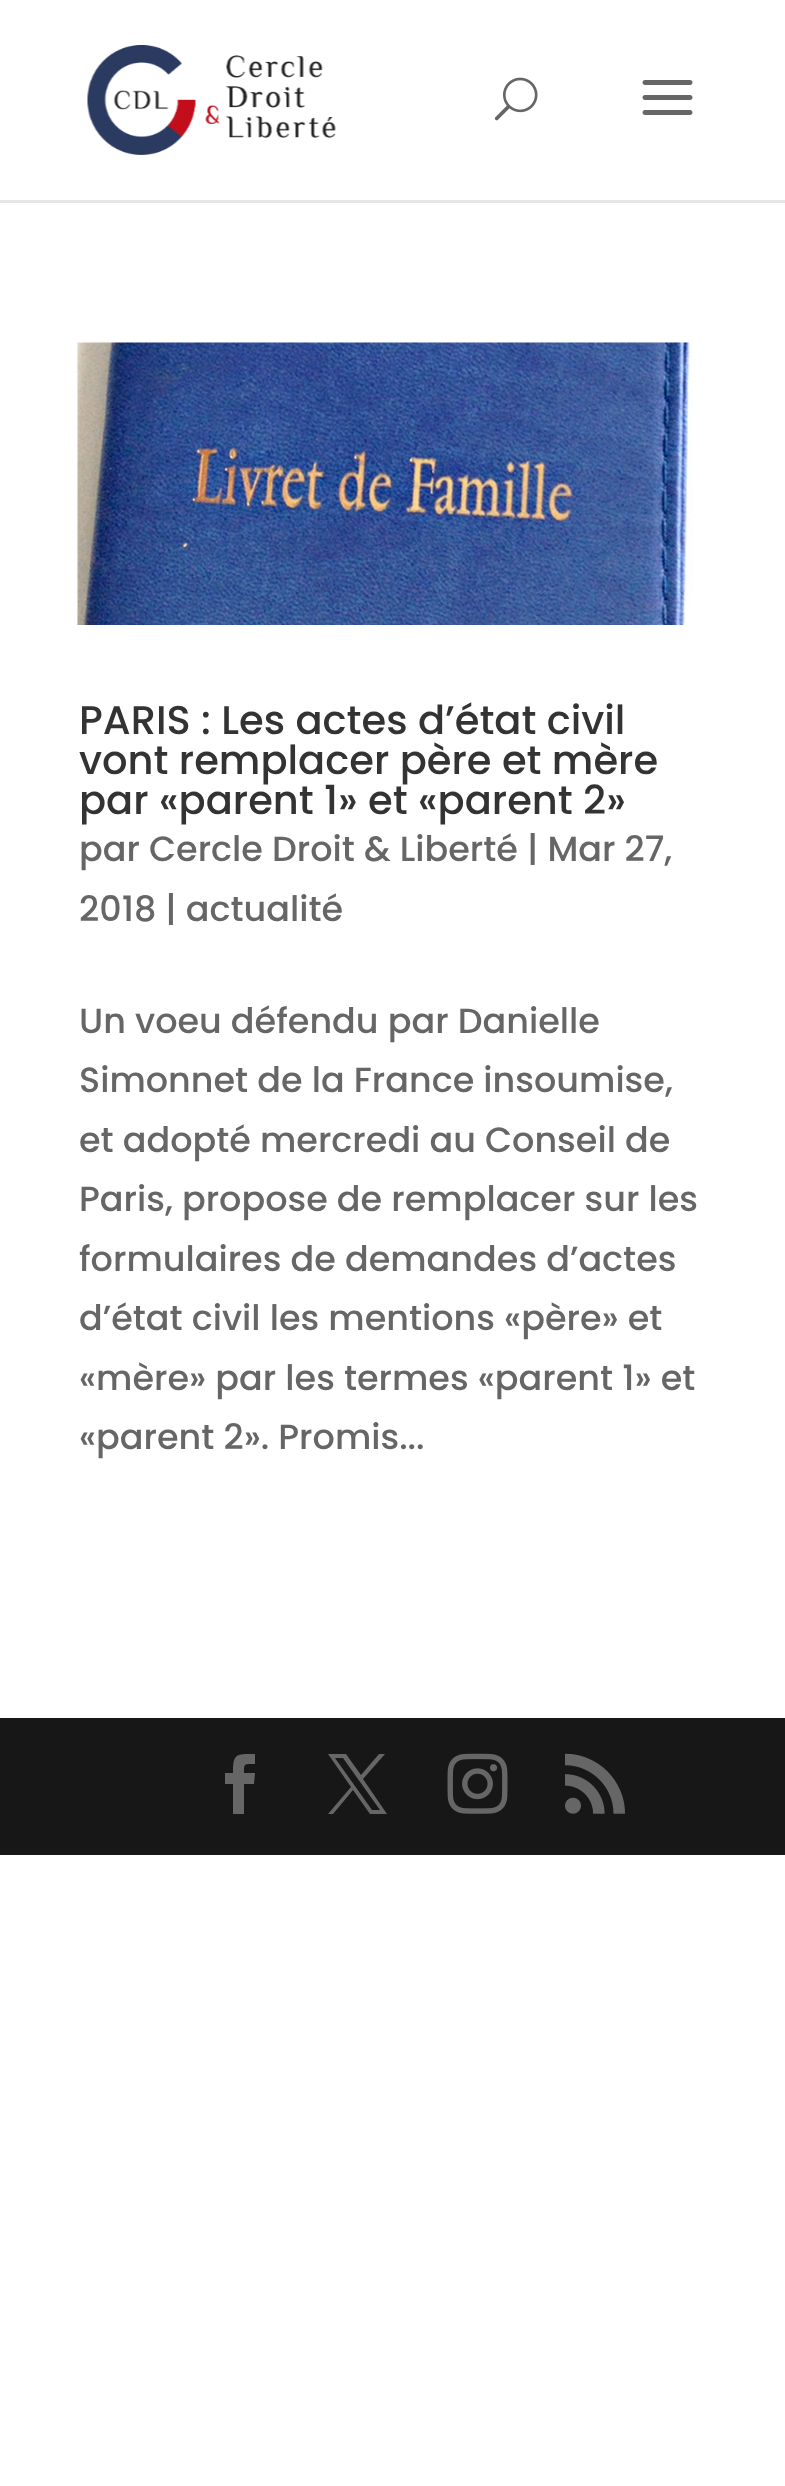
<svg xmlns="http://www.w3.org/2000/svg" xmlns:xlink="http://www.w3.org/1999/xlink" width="785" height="2486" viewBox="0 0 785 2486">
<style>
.cls-1{font:500 40px Poppins;fill:#333333}
.cls-2{font:500 35px Poppins;fill:#666666}
</style>
<rect width="100%" height="100%" fill="#ffffff"/>
<rect fill="#e6e6e6" x="0" y="200" width="785" height="3"/>
<image xlink:href="image0.png" x="87" y="45" width="249" height="110"/>
<image xlink:href="image1.png" x="494" y="77" width="44" height="44"/>
<image xlink:href="image2.png" x="642" y="80" width="51" height="35"/>
<image xlink:href="image3.png" x="77" y="342" width="617" height="283"/>
<rect fill="#171717" x="0" y="1718" width="785" height="137"/>
<path fill="#666666" d="M233 1814H244V1784H254L255 1773H244C244 1763 244 1764 255 1764V1754C236 1754 233 1753 233 1773H225V1784H233Z"/>
<path fill="#666666" d="M328 1754L351 1787L328 1814H333L353 1790L370 1814H387L363 1779L385 1754H379L361 1775L346 1754ZM335 1758H343L380 1810H372Z"/>
<image xlink:href="image4.png" x="447" y="1753" width="61" height="61"/>
<image xlink:href="image5.png" x="565" y="1753" width="60" height="61"/>
<text class="cls-1"><tspan x="79" y="734">PARIS : Les actes d’état civil</tspan><tspan x="79" y="774">vont remplacer père et mère</tspan><tspan x="79" y="814">par «parent 1» et «parent 2»</tspan></text>
<text class="cls-2"><tspan x="79" y="861">par Cercle Droit &amp; Liberté | Mar 27,</tspan><tspan x="79" y="921">2018 | actualité</tspan></text>
<text class="cls-2"><tspan x="79" y="1033">Un voeu défendu par Danielle</tspan><tspan x="79" y="1092">Simonnet de la France insoumise,</tspan><tspan x="79" y="1152">et adopté mercredi au Conseil de</tspan><tspan x="79" y="1211">Paris, propose de remplacer sur les</tspan><tspan x="79" y="1271">formulaires de demandes d’actes</tspan><tspan x="79" y="1330">d’état civil les mentions «père» et</tspan><tspan x="79" y="1390">«mère» par les termes «parent 1» et</tspan><tspan x="79" y="1449">«parent 2». Promis...</tspan></text>
</svg>
